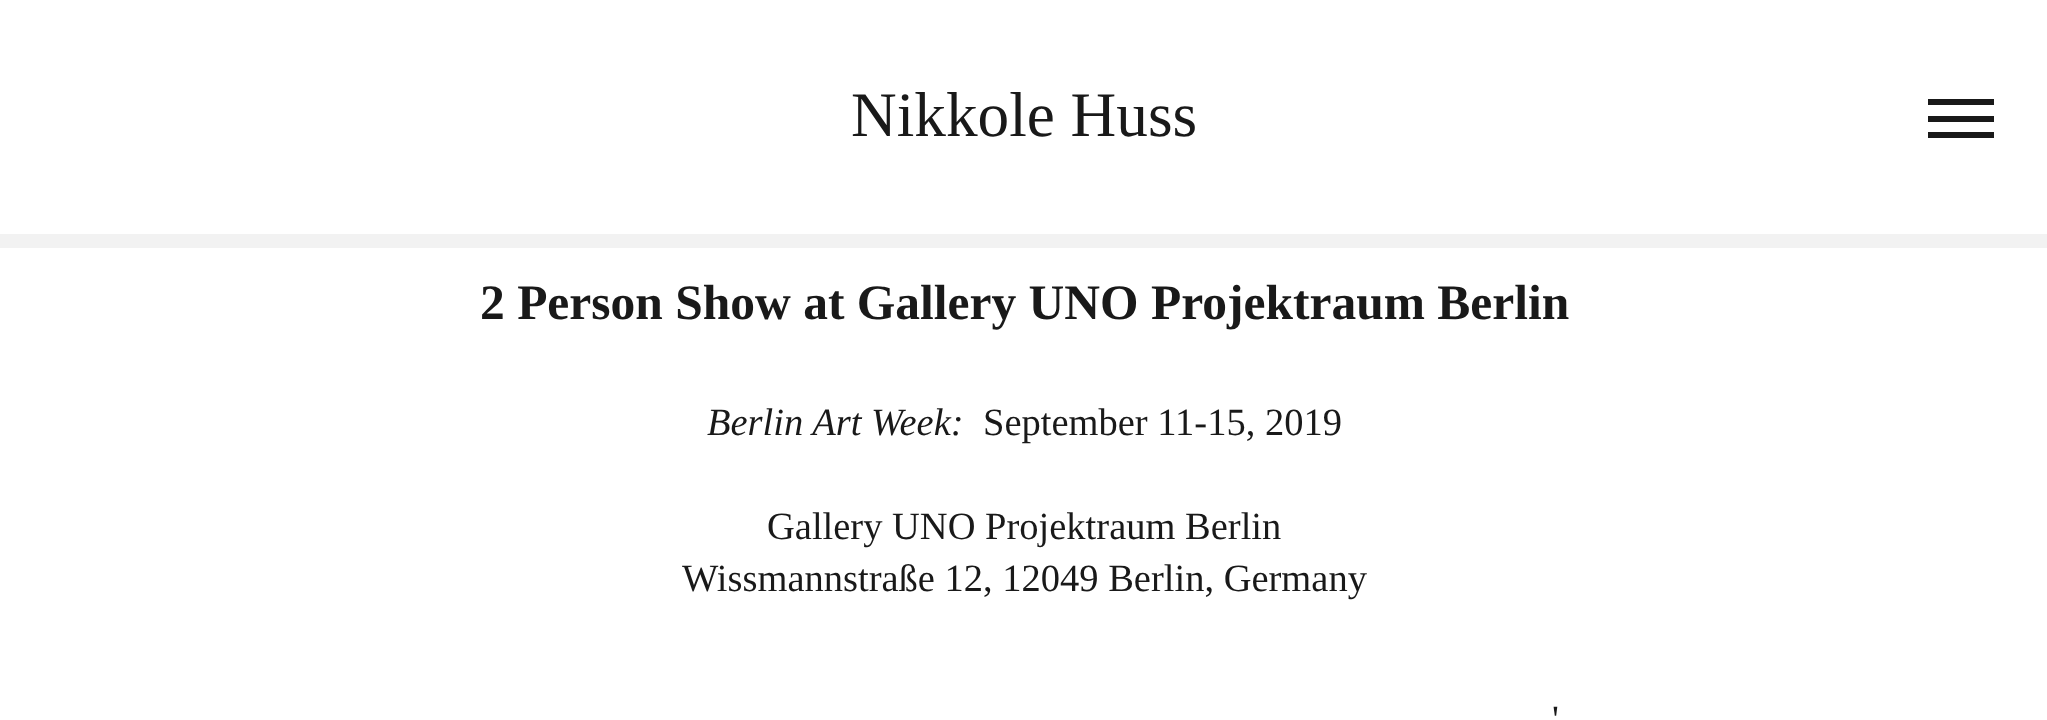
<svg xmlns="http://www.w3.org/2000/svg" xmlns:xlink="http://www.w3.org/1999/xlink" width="2047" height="720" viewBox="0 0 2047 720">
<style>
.cls-1{font:63.25px Liberation Serif;fill:#191919}
.cls-2{font:bold 49.5px Liberation Serif;fill:#191919}
.cls-3{font:italic 38.5px Liberation Serif;fill:#191919}
.cls-4{font:38.5px Liberation Serif;fill:#191919}
</style>
<rect width="100%" height="100%" fill="#ffffff"/>
<rect fill="#f2f2f2" x="0" y="234" width="2047" height="14"/>
<rect fill="#191919" x="1928" y="99" width="66" height="6"/>
<rect fill="#191919" x="1928" y="116" width="66" height="6"/>
<rect fill="#191919" x="1928" y="132" width="66" height="6"/>
<text class="cls-1" x="851" y="136">Nikkole Huss</text>
<text class="cls-2" x="480" y="319">2 Person Show at Gallery UNO Projektraum Berlin</text>
<text class="cls-3" x="707" y="435">Berlin Art Week:</text>
<text class="cls-4" x="983" y="435">September 11-15, 2019</text>
<text class="cls-4" x="767" y="539">Gallery UNO Projektraum Berlin</text>
<text class="cls-4" x="682" y="591">Wissmannstraße 12, 12049 Berlin, Germany</text>
<text class="cls-4" x="1552" y="732">'</text>
</svg>
